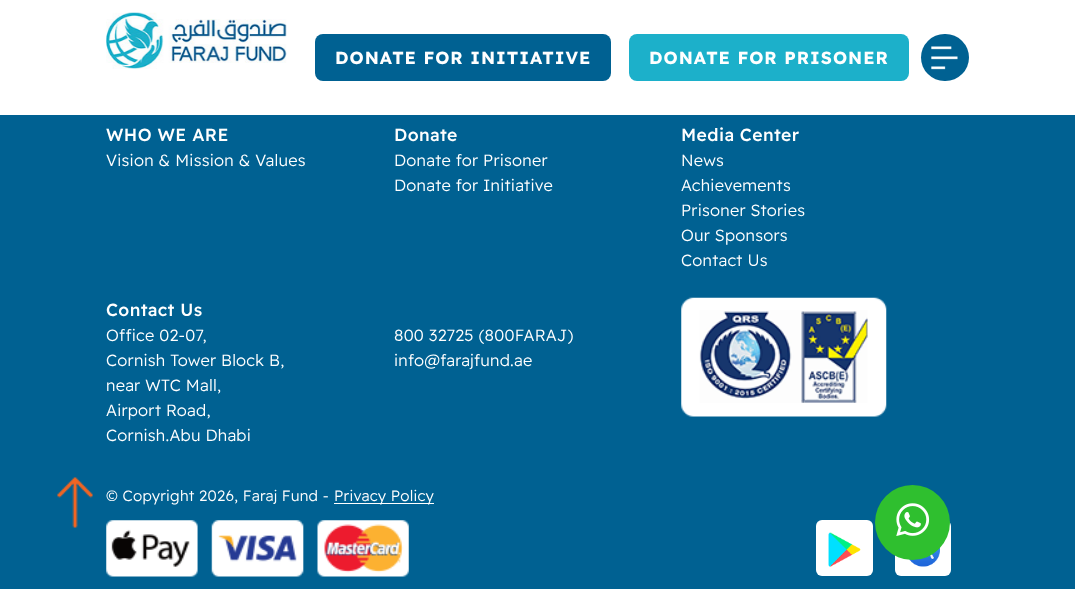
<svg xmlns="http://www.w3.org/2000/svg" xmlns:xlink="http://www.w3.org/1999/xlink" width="1075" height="589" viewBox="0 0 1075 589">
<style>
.cls-1{font:bold 17.5px Readex Pro;letter-spacing:1px;fill:#ffffff}
.cls-2{font:500 17.5px Readex Pro;letter-spacing:0.4px;fill:#ffffff}
.cls-3{font:300 16.25px Readex Pro;letter-spacing:0.25px;fill:#ffffff}
.cls-4{font:300 15px Readex Pro;letter-spacing:0.25px;fill:#ffffff}
</style>
<rect width="100%" height="100%" fill="#006192"/>
<image xlink:href="image0.png" x="57" y="477" width="36" height="51"/>
<rect fill="#ffffff" x="0" y="0" width="1075" height="115"/>
<image xlink:href="image1.png" x="106" y="12" width="181" height="57"/>
<rect fill="#006192" x="315" y="34" width="296" height="47" rx="8"/>
<rect fill="#1cb0ca" x="629" y="34" width="280" height="47" rx="8"/>
<rect fill="#006192" x="921" y="34" width="48" height="47" rx="23.5"/>
<image xlink:href="image2.png" x="931" y="46" width="27" height="24"/>
<image xlink:href="image3.png" x="681" y="297" width="206" height="120"/>
<rect fill="#ffffff" x="334" y="503" width="100" height="1"/>
<image xlink:href="image4.png" x="106" y="520" width="303" height="57"/>
<rect fill="#ffffff" x="816" y="520" width="57" height="56" rx="6"/>
<image xlink:href="image5.png" x="828" y="532" width="33" height="35"/>
<rect fill="#ffffff" x="895" y="520" width="56" height="56" rx="6"/>
<image xlink:href="image6.png" x="909" y="548" width="31" height="19"/>
<circle fill="#2fbf2f" cx="912.5" cy="522.5" r="37.5"/>
<image xlink:href="image7.png" x="896" y="503" width="34" height="33"/>
<text class="cls-1" x="335" y="64">DONATE FOR INITIATIVE</text>
<text class="cls-1" x="649" y="64">DONATE FOR PRISONER</text>
<text class="cls-2" x="106" y="141">WHO WE ARE</text>
<text class="cls-3" x="106" y="166">Vision &amp; Mission &amp; Values</text>
<text class="cls-2" x="394" y="141">Donate</text>
<text class="cls-3"><tspan x="394" y="166">Donate for Prisoner</tspan><tspan x="394" y="191">Donate for Initiative</tspan></text>
<text class="cls-2" x="681" y="141">Media Center</text>
<text class="cls-3"><tspan x="681" y="166">News</tspan><tspan x="681" y="191">Achievements</tspan><tspan x="681" y="216">Prisoner Stories</tspan><tspan x="681" y="241">Our Sponsors</tspan><tspan x="681" y="266">Contact Us</tspan></text>
<text class="cls-2" x="106" y="316">Contact Us</text>
<text class="cls-3"><tspan x="106" y="341">Office 02-07,</tspan><tspan x="106" y="366">Cornish Tower Block B,</tspan><tspan x="106" y="391">near WTC Mall,</tspan><tspan x="106" y="416">Airport Road,</tspan><tspan x="106" y="441">Cornish.Abu Dhabi</tspan></text>
<text class="cls-3"><tspan x="394" y="341">800 32725 (800FARAJ)</tspan><tspan x="394" y="366">info@farajfund.ae</tspan></text>
<text class="cls-4" x="106" y="501">© Copyright 2026, Faraj Fund -</text>
<text class="cls-4" x="334" y="501">Privacy Policy</text>
</svg>
